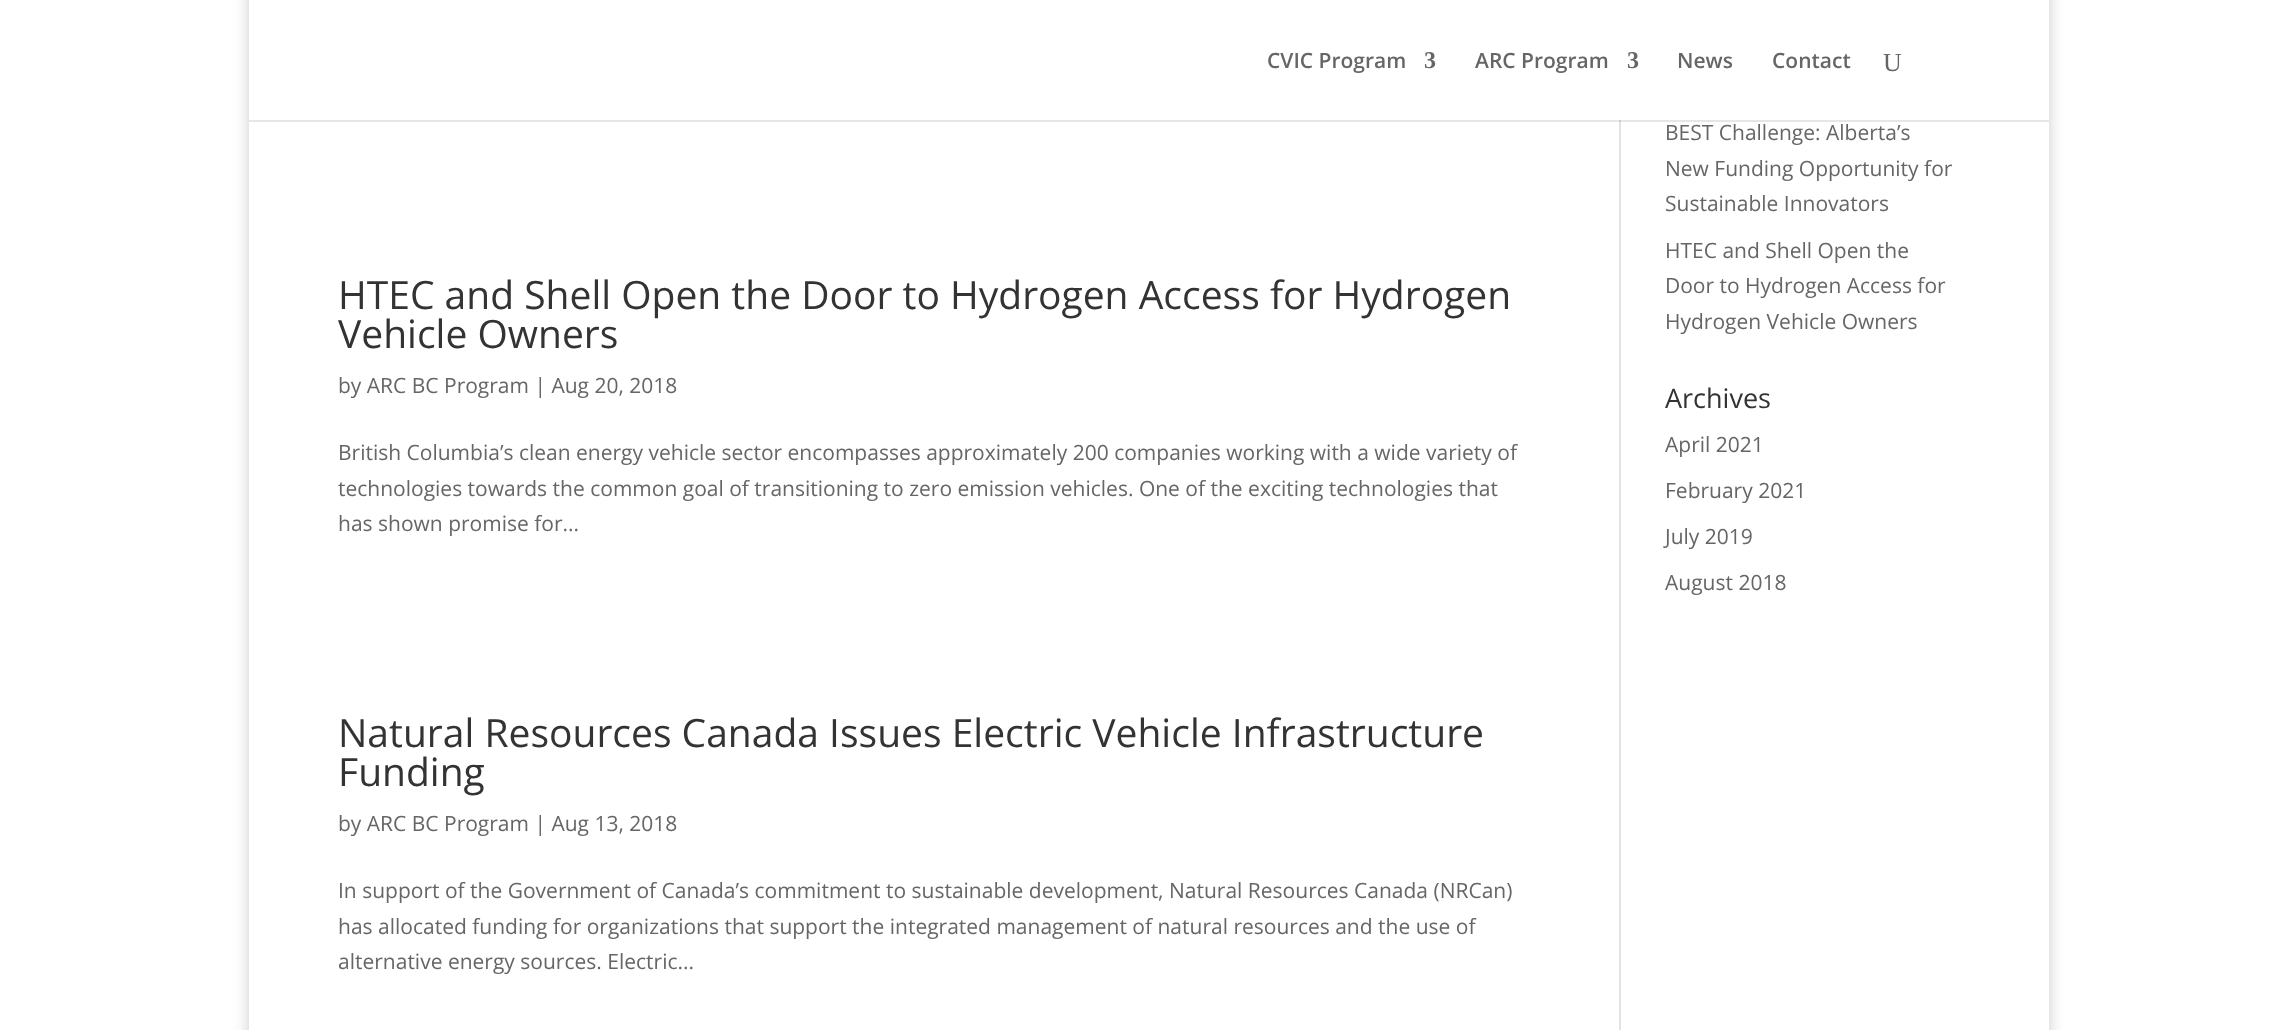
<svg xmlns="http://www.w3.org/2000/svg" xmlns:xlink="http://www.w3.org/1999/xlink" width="2296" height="1030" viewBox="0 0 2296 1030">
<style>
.cls-1{font:600 21px Open Sans;fill:#666666}
.cls-2{font:bold 24px Liberation Serif;fill:#666666}
.cls-3{font:26px Liberation Serif;fill:#666666}
.cls-4{font:39px Open Sans;fill:#333333}
.cls-5{font:21px Open Sans;fill:#666666}
.cls-6{font:27px Open Sans;fill:#333333}
</style>
<defs>
<clipPath id="clip1"><path d="M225 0H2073V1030H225ZM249-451H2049V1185H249Z" clip-rule="evenodd"/></clipPath>
</defs>
<rect width="100%" height="100%" fill="#ffffff"/>
<rect fill="#e6e6e6" x="249" y="120" width="1800" height="2"/>
<g clip-path="url(#clip1)">
<rect fill="#000000" fill-opacity="0.2" filter="blur(7.5px)" x="249" y="-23" width="1800" height="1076"/>
</g>
<rect fill="#e2e2e2" x="1619" y="122" width="2" height="908"/>
<rect fill="#cbcbcb" x="1619" y="120" width="2" height="2"/>
<text class="cls-1" x="1267" y="68">CVIC Program</text>
<text class="cls-2" x="1424" y="68">3</text>
<text class="cls-1" x="1475" y="68">ARC Program</text>
<text class="cls-2" x="1627" y="68">3</text>
<text class="cls-1" x="1677" y="68">News</text>
<text class="cls-1" x="1772" y="68">Contact</text>
<text class="cls-3" x="1883" y="71">U</text>
<text class="cls-4"><tspan x="338" y="309">HTEC and Shell Open the Door to Hydrogen Access for Hydrogen</tspan><tspan x="338" y="348">Vehicle Owners</tspan></text>
<text class="cls-5" x="338" y="393">by ARC BC Program | Aug 20, 2018</text>
<text class="cls-5"><tspan x="338" y="460">British Columbia’s clean energy vehicle sector encompasses approximately 200 companies working with a wide variety of</tspan><tspan x="338" y="496">technologies towards the common goal of transitioning to zero emission vehicles. One of the exciting technologies that</tspan><tspan x="338" y="531">has shown promise for...</tspan></text>
<text class="cls-4"><tspan x="338" y="747">Natural Resources Canada Issues Electric Vehicle Infrastructure</tspan><tspan x="338" y="786">Funding</tspan></text>
<text class="cls-5" x="338" y="831">by ARC BC Program | Aug 13, 2018</text>
<text class="cls-5"><tspan x="338" y="898">In support of the Government of Canada’s commitment to sustainable development, Natural Resources Canada (NRCan)</tspan><tspan x="338" y="934">has allocated funding for organizations that support the integrated management of natural resources and the use of</tspan><tspan x="338" y="969">alternative energy sources. Electric...</tspan></text>
<text class="cls-5"><tspan x="1665" y="140">BEST Challenge: Alberta’s</tspan><tspan x="1665" y="176">New Funding Opportunity for</tspan><tspan x="1665" y="211">Sustainable Innovators</tspan></text>
<text class="cls-5"><tspan x="1665" y="258">HTEC and Shell Open the</tspan><tspan x="1665" y="293">Door to Hydrogen Access for</tspan><tspan x="1665" y="329">Hydrogen Vehicle Owners</tspan></text>
<text class="cls-6" x="1665" y="408">Archives</text>
<text class="cls-5" x="1665" y="452">April 2021</text>
<text class="cls-5" x="1665" y="498">February 2021</text>
<text class="cls-5" x="1665" y="544">July 2019</text>
<text class="cls-5" x="1665" y="590">August 2018</text>
</svg>
